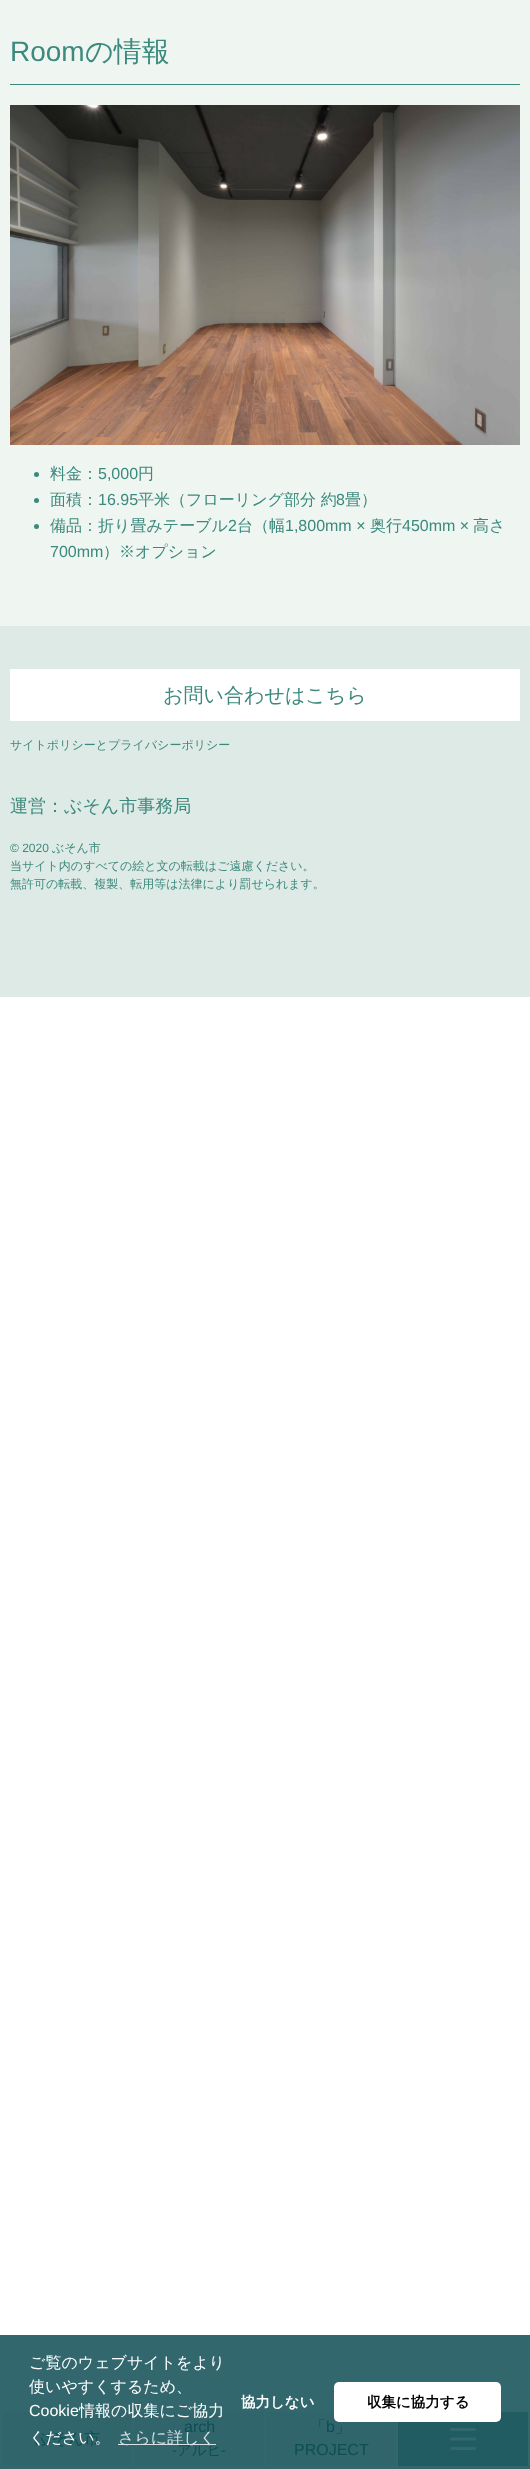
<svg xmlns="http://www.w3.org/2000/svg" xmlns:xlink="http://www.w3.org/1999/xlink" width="530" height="2469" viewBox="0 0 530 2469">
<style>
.cls-1{font:28px Liberation Sans;fill:#3c897d}
.cls-2{font:500 28px WenQuanYi Zen Hei;fill:#3c897d}
.cls-3{font:500 16px WenQuanYi Zen Hei;fill:#3c897d}
.cls-4{font:16px Liberation Sans;fill:#3c897d}
.cls-5{font:500 20px WenQuanYi Zen Hei;fill:#3c897d}
.cls-6{font:500 12px WenQuanYi Zen Hei;fill:#3c897d}
.cls-7{font:500 18px WenQuanYi Zen Hei;fill:#3c897d}
.cls-8{font:12px Liberation Sans;fill:#3c897d}
.cls-9{font:500 16px WenQuanYi Zen Hei;fill:#ffffff}
.cls-10{font:16px Liberation Sans;fill:#ffffff}
.cls-11{font:500 16px WenQuanYi Zen Hei;fill:#d8e2e3}
.cls-12{font:bold 14.5px WenQuanYi Zen Hei;fill:#ffffff}
.cls-13{font:500 16px WenQuanYi Zen Hei;fill:#0c4f54}
.cls-14{font:16px Liberation Sans;fill:#0c4f54}
.cls-15{font:14.5px Liberation Sans;fill:#0c4f54}
.cls-16{font:500 14.5px WenQuanYi Zen Hei;fill:#0c4f54}
.cls-17{font:bold 14.5px WenQuanYi Zen Hei;fill:#000000}
</style>
<rect width="100%" height="100%" fill="#ffffff"/>
<rect fill="#33676e" x="0" y="2335" width="530" height="134"/>
<rect fill="#d6e1e2" x="132" y="2444" width="2" height="1"/>
<rect fill="#eff6f2" x="0" y="0" width="530" height="626"/>
<rect fill="#3c897d" x="10" y="84" width="510" height="1"/>
<image xlink:href="image0.png" x="10" y="105" width="510" height="340"/>
<circle fill="#3c897d" cx="36.5" cy="474.5" r="2.5"/>
<circle fill="#3c897d" cx="36.5" cy="500.5" r="2.5"/>
<circle fill="#3c897d" cx="36.5" cy="526.5" r="2.5"/>
<rect fill="#deeae5" x="0" y="626" width="530" height="371"/>
<rect fill="#ffffff" x="10" y="669" width="510" height="52"/>
<rect fill="#30656c" x="3" y="2412" width="129" height="54"/>
<rect fill="#d6e0e2" x="118" y="2444" width="14" height="1"/>
<rect fill="#30656c" x="134" y="2412" width="130" height="54"/>
<rect fill="#d6e0e2" x="134" y="2444" width="82" height="1"/>
<rect fill="#30656c" x="266" y="2412" width="130" height="54"/>
<rect fill="#205c62" x="398" y="2412" width="130" height="54"/>
<image xlink:href="image1.png" x="450" y="2428" width="26" height="22"/>
<text class="cls-1" x="10" y="61">Room</text>
<text class="cls-2" x="85" y="61">の情報</text>
<text class="cls-3" x="50" y="479">料金：</text>
<text class="cls-4" x="98" y="479">5,000</text>
<text class="cls-3" x="138" y="479">円</text>
<text class="cls-3" x="50" y="505">面積：</text>
<text class="cls-4" x="98" y="505">16.95</text>
<text class="cls-3" x="138" y="505">平米（フローリング部分 約</text>
<text class="cls-4" x="336" y="505">8</text>
<text class="cls-3" x="345" y="505">畳）</text>
<text class="cls-3" x="50" y="531">備品：折り畳みテーブル</text>
<text class="cls-4" x="228" y="531">2</text>
<text class="cls-3" x="237" y="531">台（幅</text>
<text class="cls-4" x="285" y="531">1,800mm ×</text>
<text class="cls-3" x="370" y="531">奥行</text>
<text class="cls-4" x="402" y="531">450mm ×</text>
<text class="cls-3" x="473" y="531">高さ</text>
<text class="cls-4" x="50" y="557">700mm</text>
<text class="cls-3" x="103" y="557">）※オプション</text>
<text class="cls-5" x="163" y="702">お問い合わせはこちら</text>
<text class="cls-6" x="10" y="749">サイトポリシーとプライバシーポリシー</text>
<text class="cls-7" x="10" y="812">運営：ぶそん市事務局</text>
<text class="cls-8" x="10" y="852">© 2020</text>
<text class="cls-6" x="52" y="852">ぶそん市</text>
<text class="cls-6"><tspan x="10" y="870">当サイト内のすべての絵と文の転載はご遠慮ください。</tspan><tspan x="10" y="888">無許可の転載、複製、転用等は法律により罰せられます。</tspan></text>
<text class="cls-9"><tspan x="29" y="2368">ご覧のウェブサイトをより</tspan><tspan x="29" y="2392">使いやすくするため、</tspan></text>
<text class="cls-10" x="29" y="2416">Cookie</text>
<text class="cls-9" x="79" y="2416">情報の収集にご協力</text>
<text class="cls-11" x="118" y="2443">さらに詳しく</text>
<text class="cls-12" x="241" y="2407">協力しない</text>
<text class="cls-13" x="35" y="2444">ぶそん市</text>
<text class="cls-9" x="29" y="2443">ください。</text>
<text class="cls-14" x="184" y="2432">arch</text>
<text class="cls-15" x="172" y="2455">-</text>
<text class="cls-16" x="177" y="2455">アルヒ</text>
<text class="cls-15" x="221" y="2455">-</text>
<text class="cls-13" x="310" y="2432">「</text>
<text class="cls-14" x="326" y="2432">b</text>
<rect fill="#ffffff" x="334" y="2382" width="167" height="40" rx="5"/>
<text class="cls-17" x="367" y="2407">収集に協力する</text>
<text class="cls-13" x="335" y="2432">」</text>
<text class="cls-14" x="294" y="2455">PROJECT</text>
</svg>
